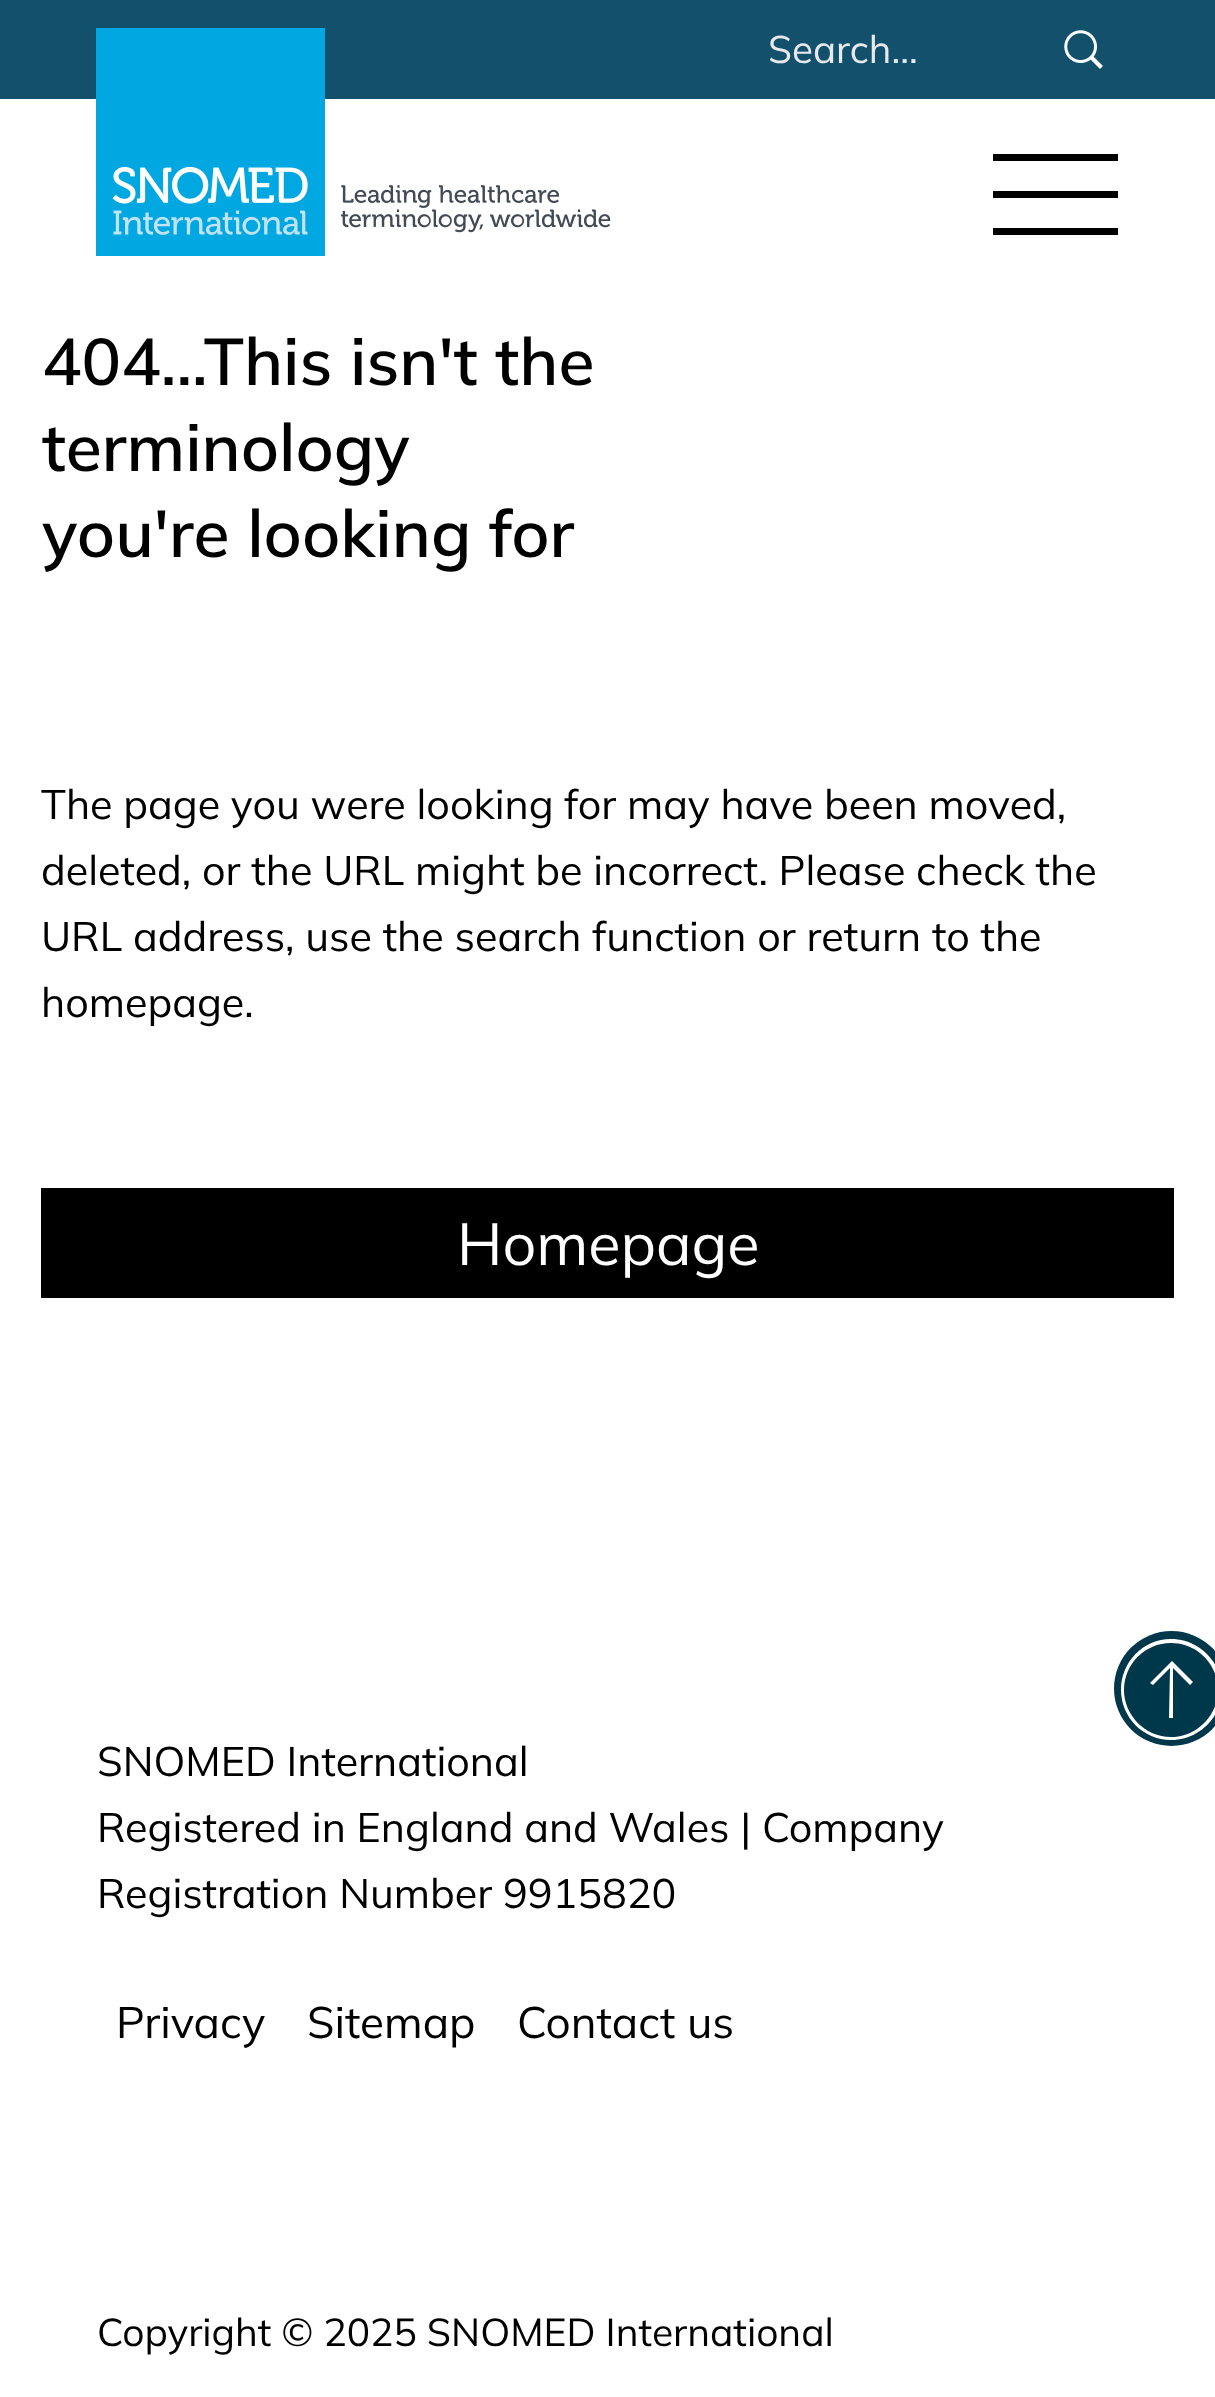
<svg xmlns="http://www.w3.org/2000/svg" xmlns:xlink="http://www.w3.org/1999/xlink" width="1215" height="2397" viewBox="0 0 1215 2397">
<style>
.cls-1{font:38.5px Mulish;fill:#e6e9ee}
.cls-2{font:600 66px Mulish;fill:#000000}
.cls-3{font:41.25px Mulish;fill:#000000}
.cls-4{font:59.25px Mulish;fill:#ffffff}
.cls-5{font:44px Mulish;fill:#000000}
.cls-6{font:38.9px Mulish;fill:#000000}
</style>
<rect width="100%" height="100%" fill="#ffffff"/>
<rect fill="#12506b" x="0" y="0" width="1215" height="99"/>
<image xlink:href="image0.png" x="96" y="28" width="515" height="228"/>
<rect fill="#000000" x="993" y="154" width="125" height="7"/>
<rect fill="#000000" x="993" y="191" width="125" height="7"/>
<rect fill="#000000" x="993" y="228" width="125" height="7"/>
<image xlink:href="image1.png" x="1064" y="30" width="39" height="39"/>
<rect fill="#000000" x="41" y="1188" width="1133" height="110"/>
<circle fill="#00384b" cx="1171.5" cy="1688.5" r="57.5"/>
<path fill="#ffffff" d="M1193 1682L1172 1661L1150 1683L1153 1685L1170 1668L1169 1718H1173V1668L1190 1685Z"/>
<path fill="#ffffff" d="M1171 1740C1143 1740 1121 1717 1121 1690C1121 1662 1143 1639 1171 1639C1199 1639 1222 1662 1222 1690C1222 1717 1199 1740 1171 1740ZM1171 1643C1145 1643 1124 1664 1124 1690C1124 1715 1145 1737 1171 1737C1197 1737 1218 1715 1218 1690C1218 1664 1197 1643 1171 1643Z"/>
<text class="cls-1" x="768" y="63">Search...</text>
<text class="cls-2"><tspan x="42" y="385">404...This isn't the</tspan><tspan x="42" y="471">terminology</tspan><tspan x="42" y="557">you're looking for</tspan></text>
<text class="cls-3"><tspan x="41" y="819">The page you were looking for may have been moved,</tspan><tspan x="41" y="885">deleted, or the URL might be incorrect. Please check the</tspan><tspan x="41" y="951">URL address, use the search function or return to the</tspan><tspan x="41" y="1017">homepage.</tspan></text>
<text class="cls-4" x="457" y="1265">Homepage</text>
<text class="cls-3"><tspan x="97" y="1776">SNOMED International</tspan><tspan x="97" y="1842">Registered in England and Wales | Company</tspan><tspan x="97" y="1908">Registration Number 9915820</tspan></text>
<text class="cls-5" x="116" y="2038">Privacy</text>
<text class="cls-5" x="307" y="2038">Sitemap</text>
<text class="cls-5" x="517" y="2038">Contact us</text>
<text class="cls-6" x="97" y="2346">Copyright © 2025 SNOMED International</text>
</svg>
